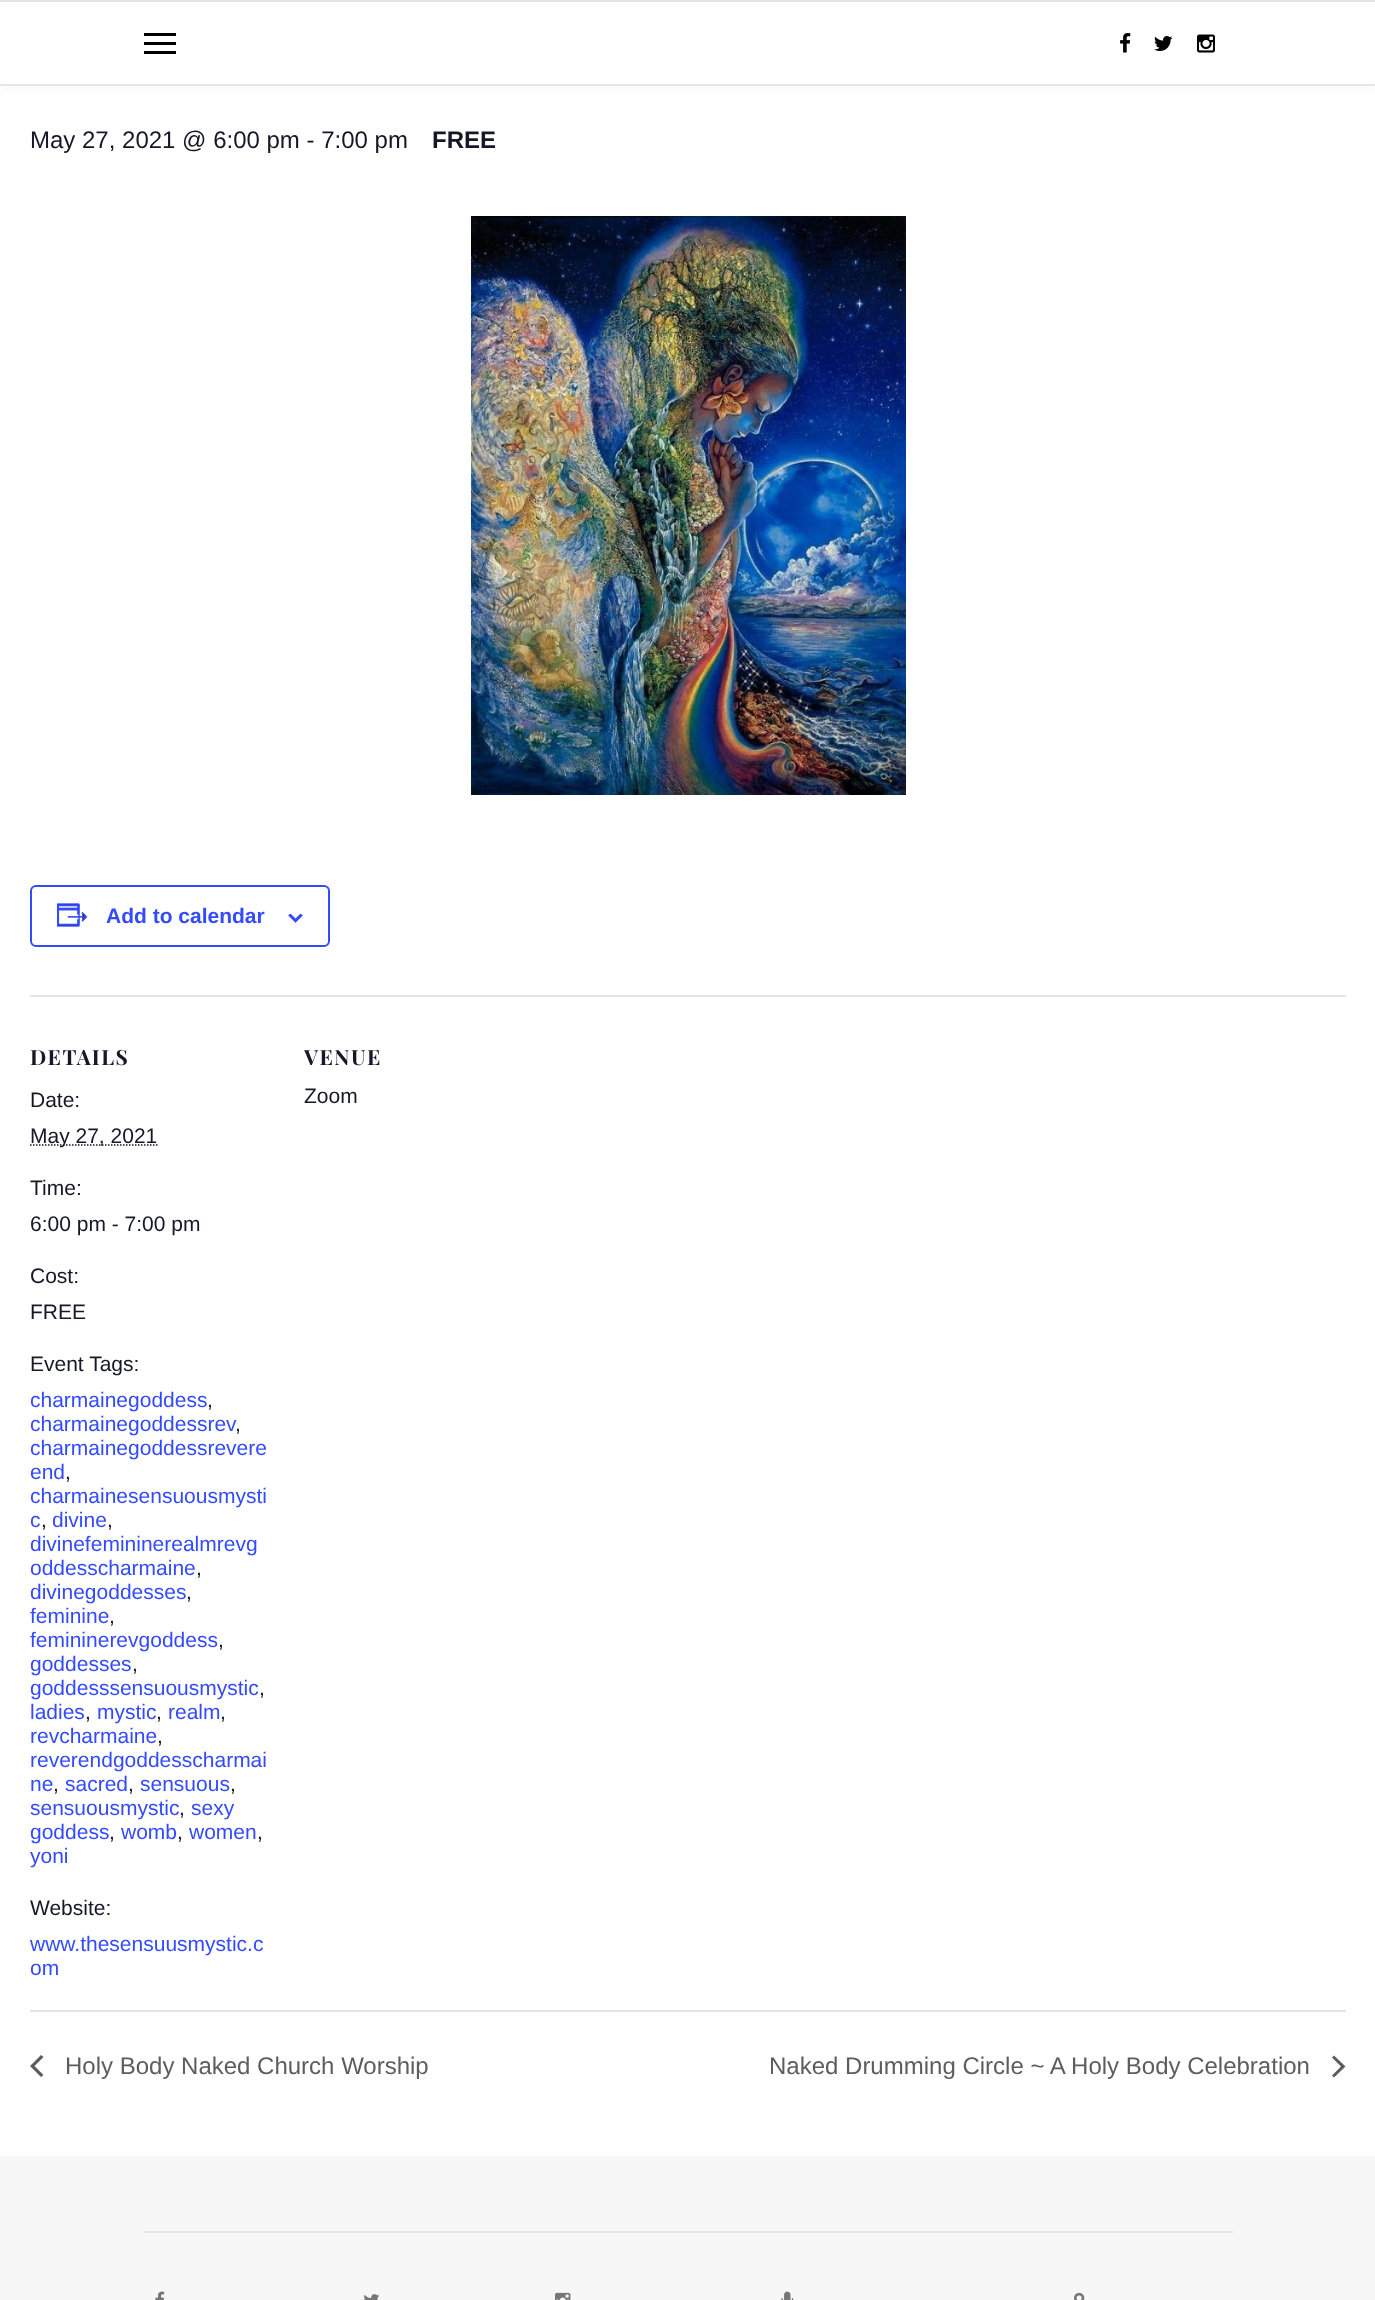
<svg xmlns="http://www.w3.org/2000/svg" xmlns:xlink="http://www.w3.org/1999/xlink" width="1375" height="2300" viewBox="0 0 1375 2300">
<style>
.cls-1{font:24px Liberation Sans;fill:#141827}
.cls-2{font:bold 24px Liberation Sans;fill:#141827}
.cls-3{font:bold 21px Liberation Sans;fill:#334aff}
.cls-4{font:bold 21px Playfair Display;letter-spacing:1.5px;fill:#141827}
.cls-5{font:21px Liberation Sans;fill:#141827}
.cls-6{font:21px Liberation Sans;fill:#334aff}
.cls-7{font:24px Liberation Sans;fill:#5d5d5d}
</style>
<rect width="100%" height="100%" fill="#ffffff"/>
<rect fill="#bebebe" fill-opacity="0.16" filter="blur(4px)" x="0" y="2" width="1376" height="85"/>
<rect fill="#ffffff" x="0" y="2" width="1375" height="82"/>
<rect fill="#e5e5e5" x="0" y="0" width="1375" height="2"/>
<rect fill="#e5e5e5" x="0" y="84" width="1375" height="2"/>
<rect fill="#000000" x="144" y="33" width="32" height="3"/>
<rect fill="#000000" x="144" y="42" width="32" height="3"/>
<rect fill="#000000" x="144" y="51" width="32" height="3"/>
<image xlink:href="image0.png" x="1120" y="33" width="11" height="20"/>
<image xlink:href="image1.png" x="1154" y="36" width="19" height="15"/>
<image xlink:href="image2.png" x="1197" y="34" width="18" height="19"/>
<image xlink:href="image3.png" x="471" y="216" width="435" height="579"/>
<rect fill="none" stroke="#334aff" stroke-width="2" x="31" y="886" width="298" height="60" rx="5"/>
<image xlink:href="image4.png" x="57" y="903" width="31" height="24"/>
<image xlink:href="image5.png" x="288" y="914" width="15" height="9"/>
<rect fill="#e4e4e4" x="30" y="995" width="1316" height="2"/>
<path fill="none" stroke="#141827" stroke-width="1.5" stroke-dasharray="1.5 1.5" d="M30 1145H157.5"/>
<rect fill="#e4e4e4" x="30" y="2010" width="1316" height="2"/>
<path fill="#5d5d5d" d="M43.5 2075L41 2077L30 2066L41 2055L43.5 2057L34.5 2066Z"/>
<path fill="#5d5d5d" d="M1332 2057.5L1334 2055.5L1345.5 2066.5L1334 2077.5L1332 2075.5L1341 2066.5Z"/>
<rect fill="#f7f7f7" x="0" y="2156" width="1375" height="144"/>
<rect fill="#e5e5e5" x="144" y="2231" width="1089" height="2"/>
<image xlink:href="image6.png" x="155" y="2291" width="10" height="9"/>
<image xlink:href="image7.png" x="364" y="2294" width="16" height="6"/>
<image xlink:href="image8.png" x="555" y="2292" width="16" height="8"/>
<image xlink:href="image9.png" x="781" y="2291" width="13" height="9"/>
<image xlink:href="image10.png" x="1074" y="2292" width="11" height="8"/>
<text class="cls-1" x="30" y="148">May 27, 2021 @ 6:00 pm - 7:00 pm</text>
<text class="cls-2" x="432" y="148">FREE</text>
<text class="cls-3" x="106" y="923">Add to calendar</text>
<text class="cls-4" x="30" y="1065">DETAILS</text>
<text class="cls-5"><tspan x="30" y="1107">Date:</tspan><tspan x="30" y="1143">May 27, 2021</tspan></text>
<text class="cls-5"><tspan x="30" y="1195">Time:</tspan><tspan x="30" y="1231">6:00 pm - 7:00 pm</tspan></text>
<text class="cls-5"><tspan x="30" y="1283">Cost:</tspan><tspan x="30" y="1319">FREE</tspan></text>
<text class="cls-5" x="30" y="1371">Event Tags:</text>
<text class="cls-6" x="30" y="1407">charmainegoddess</text>
<text class="cls-5" x="207" y="1407">,</text>
<text class="cls-6" x="30" y="1431">charmainegoddessrev</text>
<text class="cls-5" x="235" y="1431">,</text>
<text class="cls-6"><tspan x="30" y="1455">charmainegoddessrevere</tspan><tspan x="30" y="1479">end</tspan></text>
<text class="cls-5" x="65" y="1479">,</text>
<text class="cls-6"><tspan x="30" y="1503">charmainesensuousmysti</tspan><tspan x="30" y="1527">c</tspan></text>
<text class="cls-5" x="41" y="1527">,</text>
<text class="cls-6" x="52" y="1527">divine</text>
<text class="cls-5" x="107" y="1527">,</text>
<text class="cls-6"><tspan x="30" y="1551">divinefemininerealmrevg</tspan><tspan x="30" y="1575">oddesscharmaine</tspan></text>
<text class="cls-5" x="196" y="1575">,</text>
<text class="cls-6" x="30" y="1599">divinegoddesses</text>
<text class="cls-5" x="186" y="1599">,</text>
<text class="cls-6" x="30" y="1623">feminine</text>
<text class="cls-5" x="109" y="1623">,</text>
<text class="cls-6" x="30" y="1647">femininerevgoddess</text>
<text class="cls-5" x="218" y="1647">,</text>
<text class="cls-6" x="30" y="1671">goddesses</text>
<text class="cls-5" x="132" y="1671">,</text>
<text class="cls-6" x="30" y="1695">goddesssensuousmystic</text>
<text class="cls-5" x="259" y="1695">,</text>
<text class="cls-6" x="30" y="1719">ladies</text>
<text class="cls-5" x="85" y="1719">,</text>
<text class="cls-6" x="97" y="1719">mystic</text>
<text class="cls-5" x="156" y="1719">,</text>
<text class="cls-6" x="168" y="1719">realm</text>
<text class="cls-5" x="220" y="1719">,</text>
<text class="cls-6" x="30" y="1743">revcharmaine</text>
<text class="cls-5" x="157" y="1743">,</text>
<text class="cls-6"><tspan x="30" y="1767">reverendgoddesscharmai</tspan><tspan x="30" y="1791">ne</tspan></text>
<text class="cls-5" x="53" y="1791">,</text>
<text class="cls-6" x="65" y="1791">sacred</text>
<text class="cls-5" x="128" y="1791">,</text>
<text class="cls-6" x="140" y="1791">sensuous</text>
<text class="cls-5" x="230" y="1791">,</text>
<text class="cls-6" x="30" y="1815">sensuousmystic</text>
<text class="cls-5" x="179" y="1815">,</text>
<text class="cls-6" x="191" y="1815">sexy</text>
<text class="cls-6" x="30" y="1839">goddess</text>
<text class="cls-5" x="109" y="1839">,</text>
<text class="cls-6" x="121" y="1839">womb</text>
<text class="cls-5" x="177" y="1839">,</text>
<text class="cls-6" x="189" y="1839">women</text>
<text class="cls-5" x="257" y="1839">,</text>
<text class="cls-6" x="30" y="1863">yoni</text>
<text class="cls-5" x="30" y="1915">Website:</text>
<text class="cls-6"><tspan x="30" y="1951">www.thesensuusmystic.c</tspan><tspan x="30" y="1975">om</tspan></text>
<text class="cls-4" x="304" y="1065">VENUE</text>
<text class="cls-5" x="304" y="1103">Zoom</text>
<text class="cls-7" x="65" y="2074">Holy Body Naked Church Worship</text>
<text class="cls-7" x="769" y="2074">Naked Drumming Circle ~ A Holy Body Celebration</text>
</svg>
